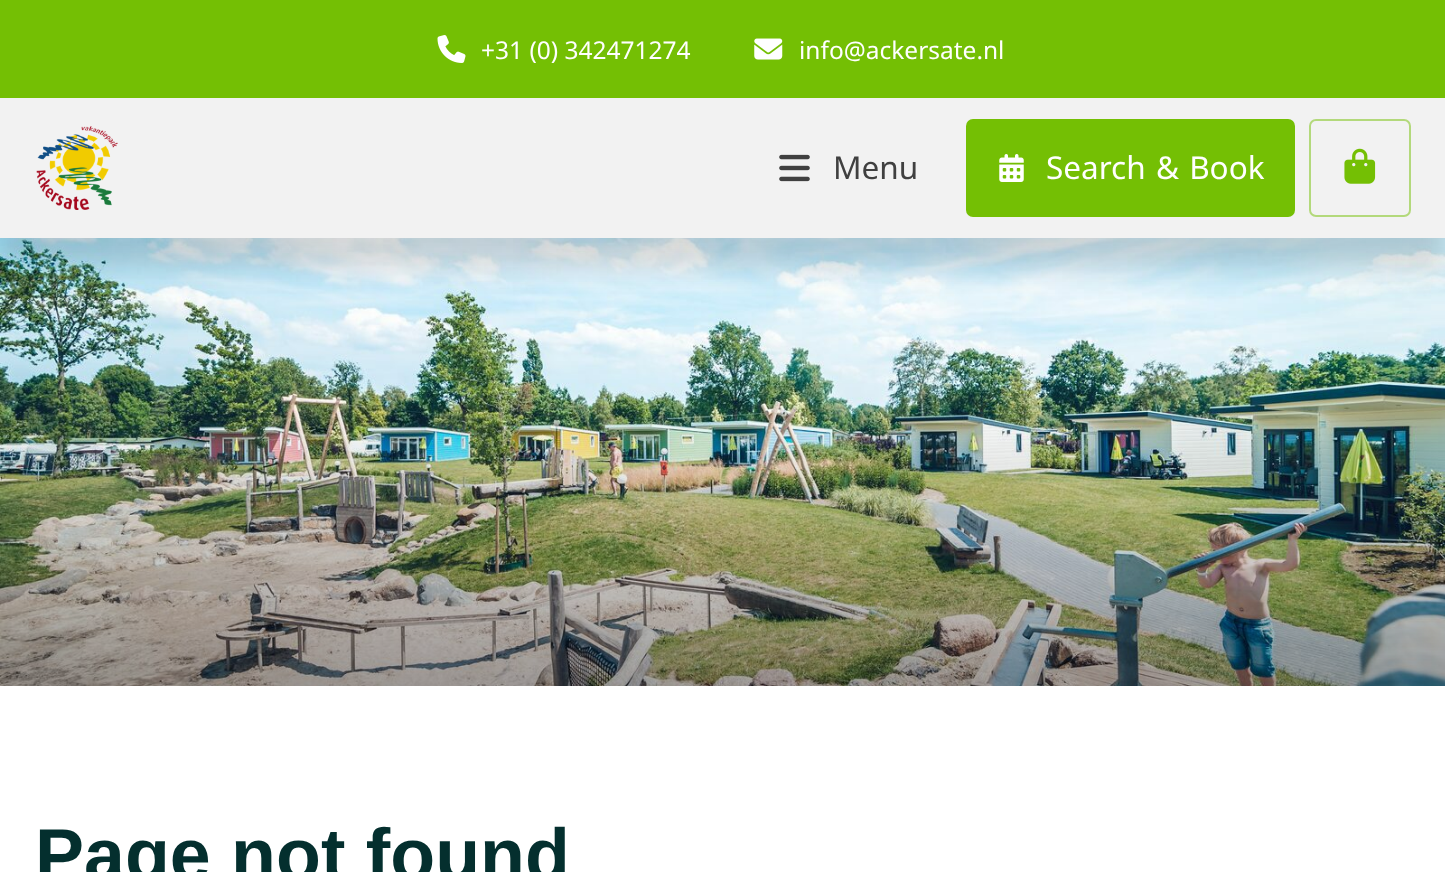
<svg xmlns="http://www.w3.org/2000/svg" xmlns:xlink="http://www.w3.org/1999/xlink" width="1445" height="872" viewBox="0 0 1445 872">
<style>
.cls-1{font:24.5px Noto Sans;fill:#ffffff}
.cls-2{font:31.5px Noto Sans;fill:#404040}
.cls-3{font:31.5px Noto Sans;fill:#ffffff}
.cls-4{font:bold 73.5px Liberation Sans;fill:#042f2e}
</style>
<rect width="100%" height="100%" fill="#ffffff"/>
<image xlink:href="image6.png" x="0" y="238" width="1445" height="448"/>
<rect fill="#000000" fill-opacity="0.15" filter="blur(14px)" x="0" y="126" width="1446" height="140"/>
<rect fill="#74bf04" x="0" y="0" width="1445" height="98"/>
<image xlink:href="image0.png" x="437" y="35" width="29" height="28"/>
<image xlink:href="image1.png" x="754" y="38" width="29" height="22"/>
<rect fill="#f2f2f2" x="0" y="98" width="1445" height="140"/>
<image xlink:href="image2.png" x="36" y="126" width="82" height="84"/>
<image xlink:href="image3.png" x="779" y="154" width="31" height="28"/>
<rect fill="#74bf04" x="966" y="119" width="329" height="98" rx="7"/>
<image xlink:href="image4.png" x="999" y="154" width="25" height="28"/>
<rect fill="none" stroke="#b3d97b" stroke-width="2" x="1310" y="120" width="100" height="96" rx="6"/>
<image xlink:href="image5.png" x="1344" y="148" width="32" height="36"/>
<text class="cls-1" x="481" y="59">+31 (0) 342471274</text>
<text class="cls-1" x="799" y="59">info@ackersate.nl</text>
<text class="cls-2" x="833" y="179">Menu</text>
<text class="cls-3" x="1046" y="179" word-spacing="2">Search &amp; Book</text>
<text class="cls-4" x="35" y="880">Page not found</text>
</svg>
